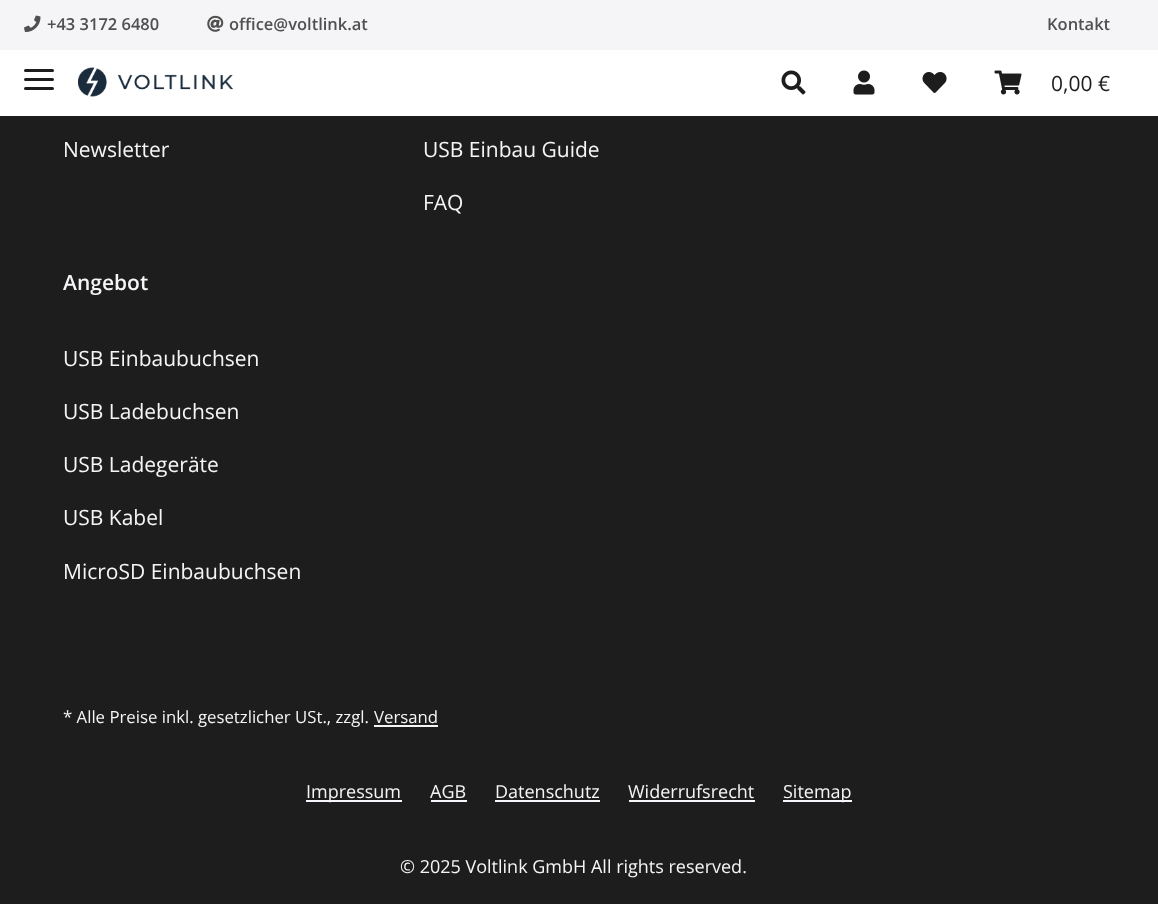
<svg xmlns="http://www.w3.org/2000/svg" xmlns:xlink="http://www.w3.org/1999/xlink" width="1158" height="904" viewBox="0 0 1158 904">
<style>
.cls-1{font:600 16.5px Open Sans;fill:#505050}
.cls-2{font:21px Open Sans;fill:#1d1d1d}
.cls-3{font:21px Open Sans;fill:#f5f5f7}
.cls-4{font:600 21px Open Sans;fill:#f5f5f7}
.cls-5{font:16.75px Open Sans;fill:#f5f5f7}
.cls-6{font:18px Open Sans;fill:#f5f5f7}
</style>
<rect width="100%" height="100%" fill="#1d1d1d"/>
<rect fill="#ffffff" x="0" y="50" width="1158" height="66"/>
<rect fill="#f5f5f7" x="0" y="0" width="1158" height="50"/>
<image xlink:href="image0.png" x="24" y="15" width="17" height="18"/>
<image xlink:href="image1.png" x="207" y="15" width="17" height="17"/>
<rect fill="#1d1d1d" x="24" y="78" width="30" height="3" rx="1.5"/>
<rect fill="#1d1d1d" x="24" y="69" width="30" height="3" rx="1.5"/>
<rect fill="#1d1d1d" x="24" y="87" width="30" height="3" rx="1.5"/>
<image xlink:href="image2.png" x="78" y="67" width="155" height="30"/>
<image xlink:href="image3.png" x="781" y="70" width="25" height="25"/>
<image xlink:href="image4.png" x="853" y="70" width="22" height="25"/>
<image xlink:href="image5.png" x="922" y="72" width="25" height="21"/>
<image xlink:href="image6.png" x="994" y="70" width="28" height="25"/>
<rect fill="#f5f5f7" x="374" y="725" width="64" height="2"/>
<rect fill="#f5f7fa" x="306" y="800" width="96" height="2"/>
<rect fill="#f5f7fa" x="431" y="800" width="36" height="2"/>
<rect fill="#f5f7fa" x="495" y="800" width="105" height="2"/>
<rect fill="#f5f7fa" x="629" y="800" width="126" height="2"/>
<rect fill="#f5f7fa" x="783" y="800" width="69" height="2"/>
<text class="cls-1" x="47" y="30">+43 3172 6480</text>
<text class="cls-1" x="229" y="30">office@voltlink.at</text>
<text class="cls-1" x="1047" y="30">Kontakt</text>
<text class="cls-2" x="1051" y="91">0,00 €</text>
<text class="cls-3" x="63" y="157">Newsletter</text>
<text class="cls-3" x="423" y="157">USB Einbau Guide</text>
<text class="cls-3" x="423" y="210">FAQ</text>
<text class="cls-4" x="63" y="290">Angebot</text>
<text class="cls-3" x="63" y="366">USB Einbaubuchsen</text>
<text class="cls-3" x="63" y="419">USB Ladebuchsen</text>
<text class="cls-3" x="63" y="472">USB Ladegeräte</text>
<text class="cls-3" x="63" y="525">USB Kabel</text>
<text class="cls-3" x="63" y="579">MicroSD Einbaubuchsen</text>
<text class="cls-5" x="63" y="723">* Alle Preise inkl. gesetzlicher USt., zzgl.</text>
<text class="cls-5" x="374" y="723">Versand</text>
<text class="cls-6" x="306" y="798">Impressum</text>
<text class="cls-6" x="430" y="798">AGB</text>
<text class="cls-6" x="495" y="798">Datenschutz</text>
<text class="cls-6" x="628" y="798">Widerrufsrecht</text>
<text class="cls-6" x="783" y="798">Sitemap</text>
<text class="cls-6" x="400" y="873">© 2025 Voltlink GmbH All rights reserved.</text>
</svg>
